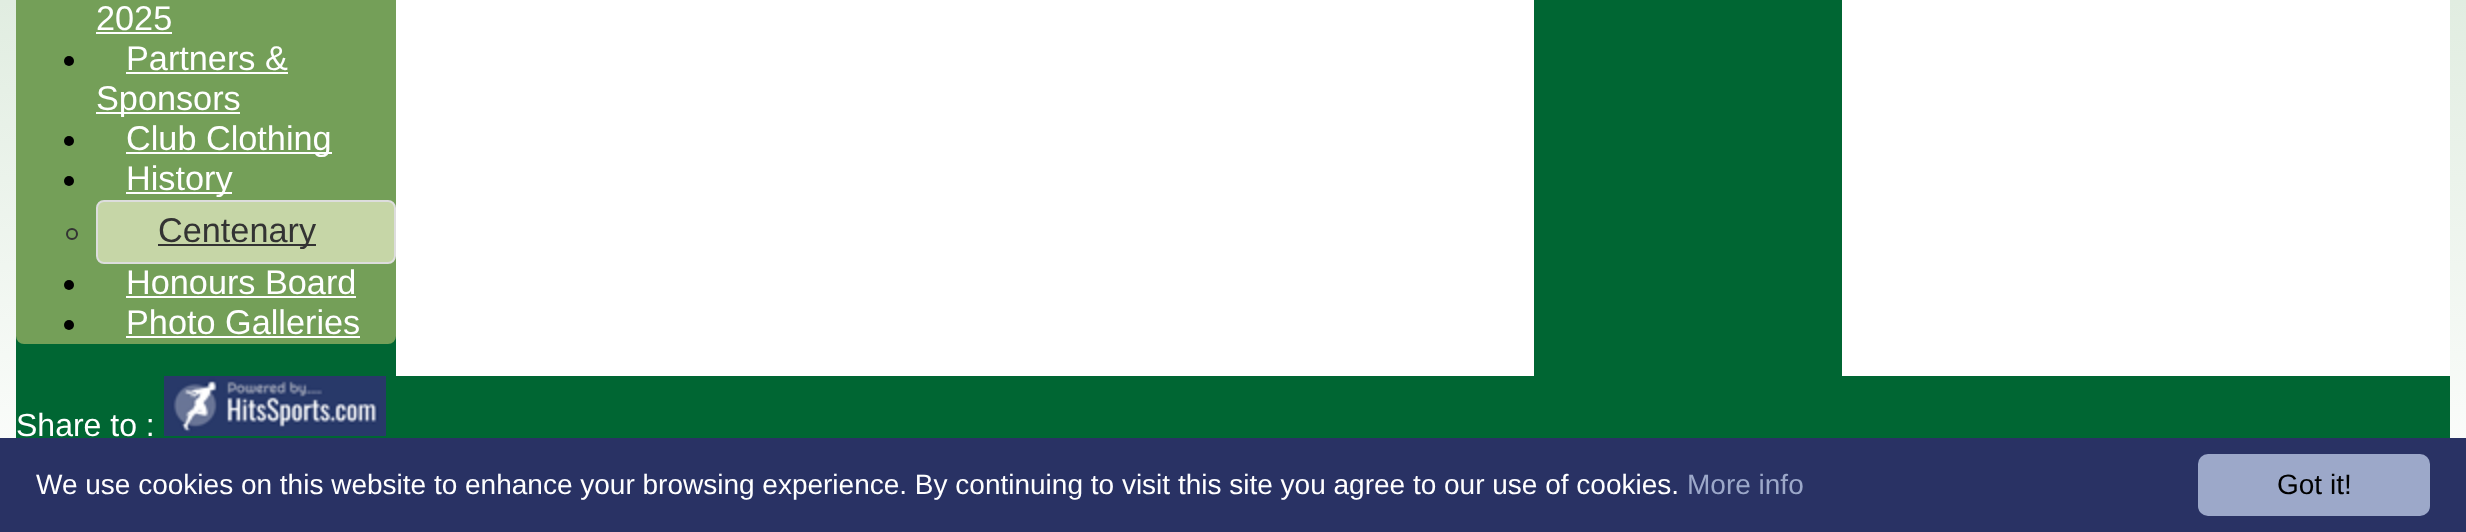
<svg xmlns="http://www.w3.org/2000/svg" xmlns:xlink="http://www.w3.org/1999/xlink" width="2466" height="532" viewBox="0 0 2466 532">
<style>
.cls-1{font:34.25px Liberation Sans;fill:#ffffff}
.cls-2{font:34.25px Liberation Sans;fill:#333333}
.cls-3{font:32px Liberation Sans;fill:#ffffff}
.cls-4{font:28px Liberation Sans;fill:#ffffff}
.cls-5{font:28px Liberation Sans;fill:#9ca8c9}
.cls-6{font:28px Liberation Sans;fill:#000000}
</style>
<defs>
<linearGradient id="g1" gradientUnits="userSpaceOnUse" x1="1233" y1="-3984" x2="1233" y2="532"><stop offset="0" stop-color="#006600"/><stop offset="1" stop-color="#ffffff"/></linearGradient>
</defs>
<rect width="100%" height="100%" fill="#ffffff"/>
<rect fill="url(#g1)" x="0" y="0" width="2466" height="438"/>
<rect fill="#ffffff" x="396" y="0" width="2054" height="376"/>
<rect fill="#006633" x="16" y="336" width="380" height="40"/>
<rect fill="#749f58" x="16" y="-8" width="380" height="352" rx="8"/>
<rect fill="#ffffff" x="96" y="32" width="76" height="2"/>
<circle fill="#000000" cx="69" cy="61" r="5"/>
<rect fill="#ffffff" x="126" y="72" width="162" height="2"/>
<rect fill="#ffffff" x="96" y="112" width="144" height="2"/>
<circle fill="#000000" cx="69" cy="141" r="5"/>
<rect fill="#ffffff" x="126" y="152" width="206" height="2"/>
<circle fill="#000000" cx="69" cy="181" r="5"/>
<rect fill="#ffffff" x="126" y="192" width="106" height="2"/>
<rect fill="#c6d6a7" stroke="#dddddd" stroke-width="2" x="97" y="201" width="298" height="62" rx="7"/>
<circle fill="none" stroke="#333333" stroke-width="2" cx="72" cy="234" r="5"/>
<rect fill="#333333" x="158" y="244" width="158" height="2"/>
<circle fill="#000000" cx="69" cy="285" r="5"/>
<rect fill="#ffffff" x="126" y="296" width="230" height="2"/>
<circle fill="#000000" cx="69" cy="325" r="5"/>
<rect fill="#ffffff" x="126" y="336" width="234" height="2"/>
<rect fill="#006633" x="1534" y="0" width="308" height="376"/>
<rect fill="#006633" x="16" y="376" width="2434" height="62"/>
<image xlink:href="image0.png" x="164" y="376" width="222" height="60"/>
<rect fill="#293264" x="0" y="438" width="2466" height="94"/>
<rect fill="#9ca8c9" x="2198" y="454" width="232" height="62" rx="10"/>
<text class="cls-1" x="96" y="30">2025</text>
<text class="cls-1" x="126" y="70">Partners &amp;</text>
<text class="cls-1" x="96" y="110">Sponsors</text>
<text class="cls-1"><tspan x="126" y="150">Club Clothing</tspan><tspan x="126" y="190">History</tspan></text>
<text class="cls-2" x="158" y="242">Centenary</text>
<text class="cls-1"><tspan x="126" y="294">Honours Board</tspan><tspan x="126" y="334">Photo Galleries</tspan></text>
<text class="cls-3" x="16" y="436">Share to :</text>
<text class="cls-4" x="36" y="494">We use cookies on this website to enhance your browsing experience. By continuing to visit this site you agree to our use of cookies.</text>
<text class="cls-5" x="1687" y="494">More info</text>
<text class="cls-6" x="2277" y="494">Got it!</text>
</svg>
